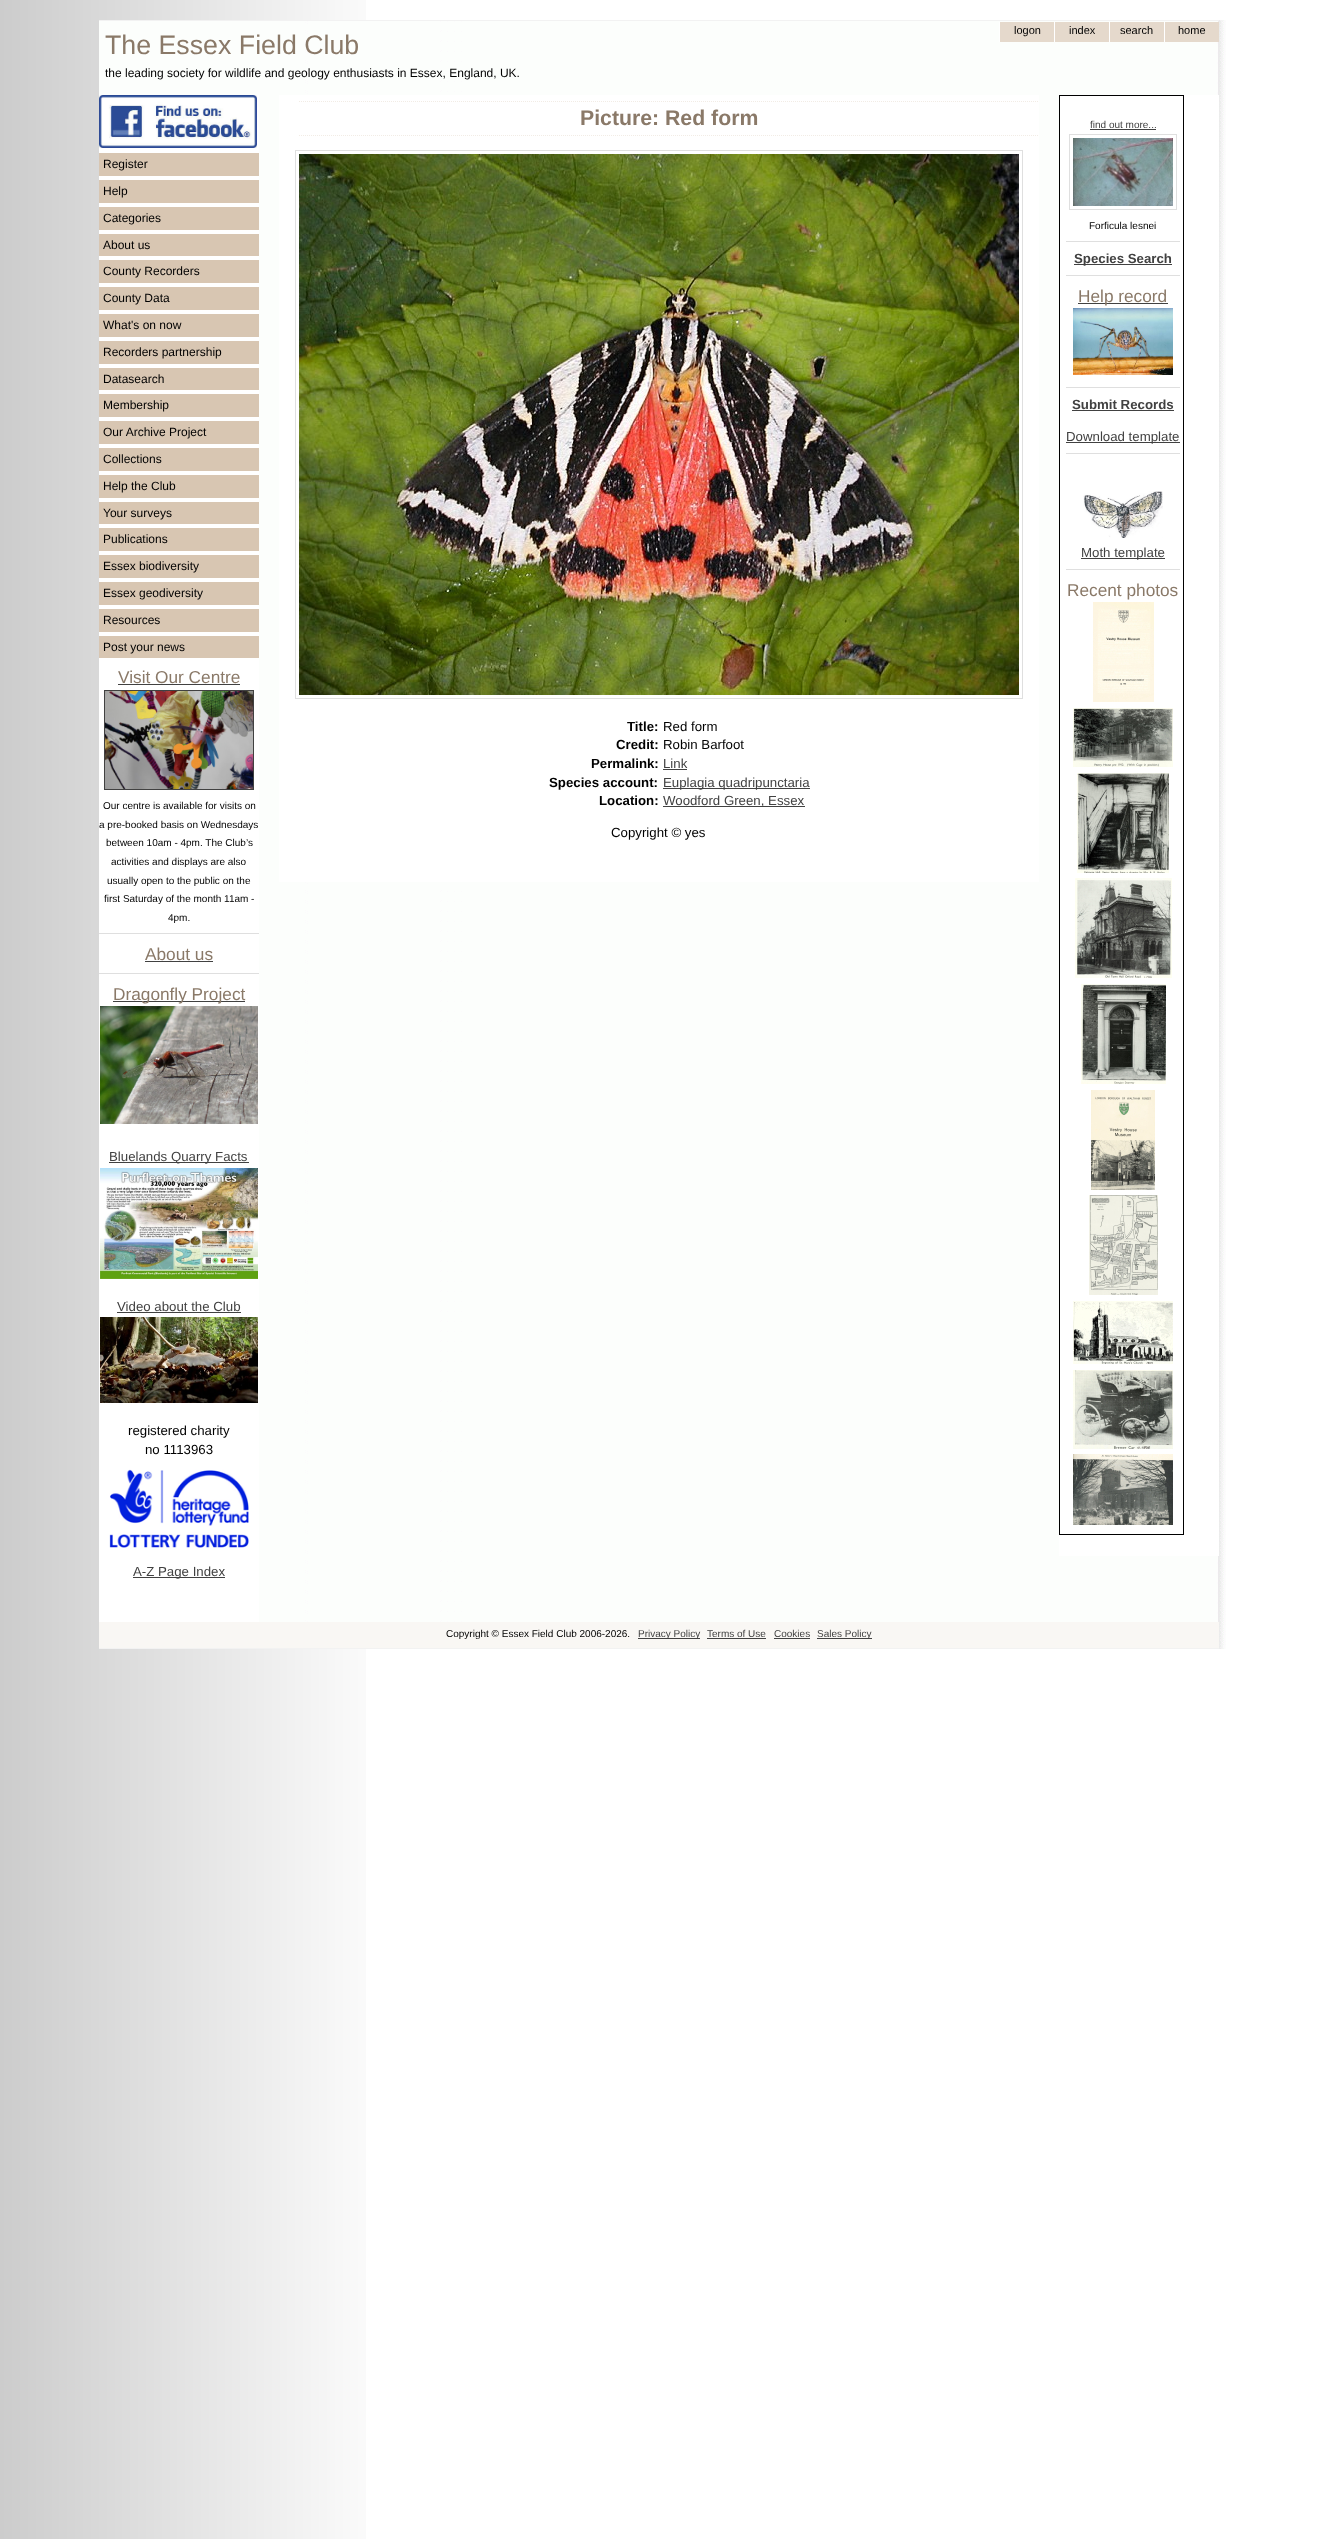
<svg xmlns="http://www.w3.org/2000/svg" xmlns:xlink="http://www.w3.org/1999/xlink" width="1325" height="2539" viewBox="0 0 1325 2539">
<style>
.cls-1{font:11px Liberation Sans;fill:#000000}
.cls-2{font:26.75px Liberation Sans;fill:#8a7968}
.cls-3{font:12px Liberation Sans;fill:#000000}
.cls-4{font:17.25px Liberation Sans;fill:#8a7968}
.cls-5{font:10px Liberation Sans;fill:#000000}
.cls-6{font:13.25px Liberation Sans;fill:#414141}
.cls-7{font:13.25px Liberation Sans;fill:#000000}
.cls-8{font:bold 21.25px Liberation Sans;fill:#8a7968}
.cls-9{font:bold 13.25px Liberation Sans;fill:#000000}
.cls-10{font:10px Liberation Sans;fill:#414141}
.cls-11{font:bold 13.25px Liberation Sans;fill:#414141}
</style>
<rect width="100%" height="100%" fill="#ffffff"/>
<image xlink:href="image0.png" x="0" y="0" width="366" height="2539"/>
<image xlink:href="image1.png" x="99" y="20" width="1127" height="1629"/>
<rect fill="#f2f2f2" x="99" y="20" width="1120" height="1"/>
<rect fill="#e5d9cc" x="1000" y="22" width="54" height="20"/>
<rect fill="#ffffff" x="999" y="22" width="1" height="20"/>
<rect fill="#e5d9cc" x="1055" y="22" width="54" height="20"/>
<rect fill="#ffffff" x="1054" y="22" width="1" height="20"/>
<rect fill="#e5d9cc" x="1110" y="22" width="54" height="20"/>
<rect fill="#ffffff" x="1109" y="22" width="1" height="20"/>
<rect fill="#e5d9cc" x="1165" y="22" width="54" height="20"/>
<rect fill="#ffffff" x="1164" y="22" width="1" height="20"/>
<rect fill="#ffffff" x="99" y="95" width="160" height="1527"/>
<image xlink:href="image2.png" x="99" y="95" width="158" height="53"/>
<rect fill="#d8c6b2" x="99" y="153" width="160" height="23"/>
<rect fill="#d8c6b2" x="99" y="180" width="160" height="23"/>
<rect fill="#d8c6b2" x="99" y="207" width="160" height="23"/>
<rect fill="#d8c6b2" x="99" y="234" width="160" height="22"/>
<rect fill="#d8c6b2" x="99" y="260" width="160" height="23"/>
<rect fill="#d8c6b2" x="99" y="287" width="160" height="23"/>
<rect fill="#d8c6b2" x="99" y="314" width="160" height="23"/>
<rect fill="#d8c6b2" x="99" y="341" width="160" height="23"/>
<rect fill="#d8c6b2" x="99" y="368" width="160" height="22"/>
<rect fill="#d8c6b2" x="99" y="394" width="160" height="23"/>
<rect fill="#d8c6b2" x="99" y="421" width="160" height="23"/>
<rect fill="#d8c6b2" x="99" y="448" width="160" height="23"/>
<rect fill="#d8c6b2" x="99" y="475" width="160" height="23"/>
<rect fill="#d8c6b2" x="99" y="502" width="160" height="22"/>
<rect fill="#d8c6b2" x="99" y="528" width="160" height="23"/>
<rect fill="#d8c6b2" x="99" y="555" width="160" height="23"/>
<rect fill="#d8c6b2" x="99" y="582" width="160" height="23"/>
<rect fill="#d8c6b2" x="99" y="609" width="160" height="23"/>
<rect fill="#d8c6b2" x="99" y="636" width="160" height="22"/>
<rect fill="#414141" x="118" y="684" width="122" height="1"/>
<rect fill="none" stroke="#414141" x="104.5" y="690.5" width="149" height="99"/>
<image xlink:href="image3.png" x="105" y="691" width="148" height="98"/>
<rect fill="#dfdfdf" x="99" y="933" width="160" height="1"/>
<rect fill="#414141" x="145" y="961" width="68" height="1"/>
<rect fill="#dfdfdf" x="99" y="973" width="160" height="1"/>
<rect fill="#414141" x="113" y="1001" width="132" height="1"/>
<image xlink:href="image4.png" x="100" y="1006" width="158" height="118"/>
<rect fill="#414141" x="109" y="1162" width="140" height="1"/>
<image xlink:href="image5.png" x="100" y="1168" width="158" height="111"/>
<rect fill="#414141" x="117" y="1312" width="124" height="1"/>
<image xlink:href="image6.png" x="100" y="1317" width="158" height="86"/>
<image xlink:href="image7.png" x="109" y="1469" width="140" height="79"/>
<rect fill="#414141" x="133" y="1577" width="92" height="1"/>
<rect fill="#ffffff" x="279" y="95" width="760" height="787"/>
<path fill="none" stroke="#f2ece5" stroke-dasharray="1 1" d="M299 101.5H1039"/>
<path fill="none" stroke="#f2ece5" stroke-dasharray="1 1" d="M299 135.5H1039"/>
<rect fill="none" stroke="#dfdfdf" x="295.5" y="150.5" width="727" height="548"/>
<image xlink:href="image8.png" x="299" y="154" width="720" height="541"/>
<rect fill="#414141" x="663" y="769" width="24" height="1"/>
<rect fill="#414141" x="663" y="788" width="147" height="1"/>
<rect fill="#414141" x="663" y="806" width="142" height="1"/>
<rect fill="#ffffff" x="1059" y="95" width="160" height="1461"/>
<rect fill="none" stroke="#000000" x="1059.5" y="95.5" width="124" height="1439"/>
<rect fill="#414141" x="1090" y="129" width="66" height="1"/>
<rect fill="none" stroke="#dfdfdf" x="1069.5" y="134.5" width="107" height="75"/>
<image xlink:href="image9.png" x="1073" y="138" width="100" height="68"/>
<rect fill="#dfdfdf" x="1066" y="241" width="114" height="1"/>
<rect fill="#414141" x="1074" y="264" width="98" height="1"/>
<rect fill="#dfdfdf" x="1066" y="275" width="114" height="1"/>
<rect fill="#414141" x="1078" y="303" width="90" height="1"/>
<image xlink:href="image10.png" x="1073" y="308" width="100" height="67"/>
<rect fill="#dfdfdf" x="1066" y="387" width="114" height="1"/>
<rect fill="#414141" x="1072" y="410" width="102" height="1"/>
<rect fill="#414141" x="1066" y="442" width="114" height="1"/>
<rect fill="#dfdfdf" x="1066" y="453" width="114" height="1"/>
<image xlink:href="image11.png" x="1083" y="491" width="80" height="47"/>
<rect fill="#414141" x="1081" y="558" width="84" height="1"/>
<rect fill="#dfdfdf" x="1066" y="569" width="114" height="1"/>
<image xlink:href="image12.png" x="1093" y="602" width="61" height="100"/>
<image xlink:href="image13.png" x="1073" y="708" width="100" height="59"/>
<image xlink:href="image14.png" x="1077" y="773" width="92" height="100"/>
<image xlink:href="image15.png" x="1075" y="878" width="97" height="100"/>
<image xlink:href="image16.png" x="1081" y="984" width="85" height="100"/>
<image xlink:href="image17.png" x="1091" y="1090" width="64" height="100"/>
<image xlink:href="image18.png" x="1089" y="1195" width="69" height="100"/>
<image xlink:href="image19.png" x="1073" y="1301" width="100" height="63"/>
<image xlink:href="image20.png" x="1073" y="1370" width="100" height="79"/>
<image xlink:href="image21.png" x="1073" y="1454" width="100" height="71"/>
<rect fill="#f9f7f4" x="99" y="1622" width="1120" height="26"/>
<rect fill="#f2f2f2" x="99" y="1648" width="1120" height="1"/>
<rect fill="#414141" x="638" y="1638" width="62" height="1"/>
<rect fill="#414141" x="707" y="1638" width="59" height="1"/>
<rect fill="#414141" x="774" y="1638" width="36" height="1"/>
<rect fill="#414141" x="817" y="1638" width="55" height="1"/>
<text class="cls-1" x="1014" y="34">logon</text>
<text class="cls-1" x="1069" y="34">index</text>
<text class="cls-1" x="1120" y="34">search</text>
<text class="cls-1" x="1178" y="34">home</text>
<text class="cls-2" x="105" y="54">The Essex Field Club</text>
<text class="cls-3" x="105" y="77">the leading society for wildlife and geology enthusiasts in Essex, England, UK.</text>
<text class="cls-3" x="103" y="168">Register</text>
<text class="cls-3" x="103" y="195">Help</text>
<text class="cls-3" x="103" y="222">Categories</text>
<text class="cls-3" x="103" y="249">About us</text>
<text class="cls-3" x="103" y="275">County Recorders</text>
<text class="cls-3" x="103" y="302">County Data</text>
<text class="cls-3" x="103" y="329">What's on now</text>
<text class="cls-3" x="103" y="356">Recorders partnership</text>
<text class="cls-3" x="103" y="383">Datasearch</text>
<text class="cls-3" x="103" y="409">Membership</text>
<text class="cls-3" x="103" y="436">Our Archive Project</text>
<text class="cls-3" x="103" y="463">Collections</text>
<text class="cls-3" x="103" y="490">Help the Club</text>
<text class="cls-3" x="103" y="517">Your surveys</text>
<text class="cls-3" x="103" y="543">Publications</text>
<text class="cls-3" x="103" y="570">Essex biodiversity</text>
<text class="cls-3" x="103" y="597">Essex geodiversity</text>
<text class="cls-3" x="103" y="624">Resources</text>
<text class="cls-3" x="103" y="651">Post your news</text>
<text class="cls-4" x="118" y="683">Visit Our Centre</text>
<text class="cls-5" x="103" y="809">Our centre is available for visits on</text>
<text class="cls-5" x="99" y="828">a pre-booked basis on Wednesdays</text>
<text class="cls-5" x="106" y="846">between 10am - 4pm. The Club’s</text>
<text class="cls-5" x="111" y="865">activities and displays are also</text>
<text class="cls-5" x="107" y="884">usually open to the public on the</text>
<text class="cls-5" x="104" y="902">first Saturday of the month 11am -</text>
<text class="cls-5" x="168" y="921">4pm.</text>
<text class="cls-4" x="145" y="960">About us</text>
<text class="cls-4" x="113" y="1000">Dragonfly Project</text>
<text class="cls-6" x="109" y="1161">Bluelands Quarry Facts</text>
<text class="cls-6" x="117" y="1311">Video about the Club</text>
<text class="cls-7" x="128" y="1435">registered charity</text>
<text class="cls-7" x="145" y="1454">no 1113963</text>
<text class="cls-6" x="133" y="1576">A-Z Page Index</text>
<text class="cls-8" x="580" y="125">Picture: Red form</text>
<text class="cls-9" x="627" y="731">Title:</text>
<text class="cls-7" x="663" y="731">Red form</text>
<text class="cls-9" x="616" y="749">Credit:</text>
<text class="cls-7" x="663" y="749">Robin Barfoot</text>
<text class="cls-9" x="591" y="768">Permalink:</text>
<text class="cls-6" x="663" y="768">Link</text>
<text class="cls-9" x="549" y="787">Species account:</text>
<text class="cls-6" x="663" y="787">Euplagia quadripunctaria</text>
<text class="cls-9" x="599" y="805">Location:</text>
<text class="cls-6" x="663" y="805">Woodford Green, Essex</text>
<text class="cls-7" x="611" y="837">Copyright © yes</text>
<text class="cls-10" x="1090" y="128">find out more...</text>
<text class="cls-5" x="1089" y="229">Forficula lesnei</text>
<text class="cls-11" x="1074" y="263">Species Search</text>
<text class="cls-4" x="1078" y="302">Help record</text>
<text class="cls-11" x="1072" y="409">Submit Records</text>
<text class="cls-6" x="1066" y="441">Download template</text>
<text class="cls-6" x="1081" y="557">Moth template</text>
<text class="cls-4" x="1067" y="596">Recent photos</text>
<text class="cls-5" x="446" y="1637">Copyright © Essex Field Club 2006-2026.</text>
<text class="cls-10" x="638" y="1637">Privacy Policy</text>
<text class="cls-10" x="707" y="1637">Terms of Use</text>
<text class="cls-10" x="774" y="1637">Cookies</text>
<text class="cls-10" x="817" y="1637">Sales Policy</text>
</svg>
